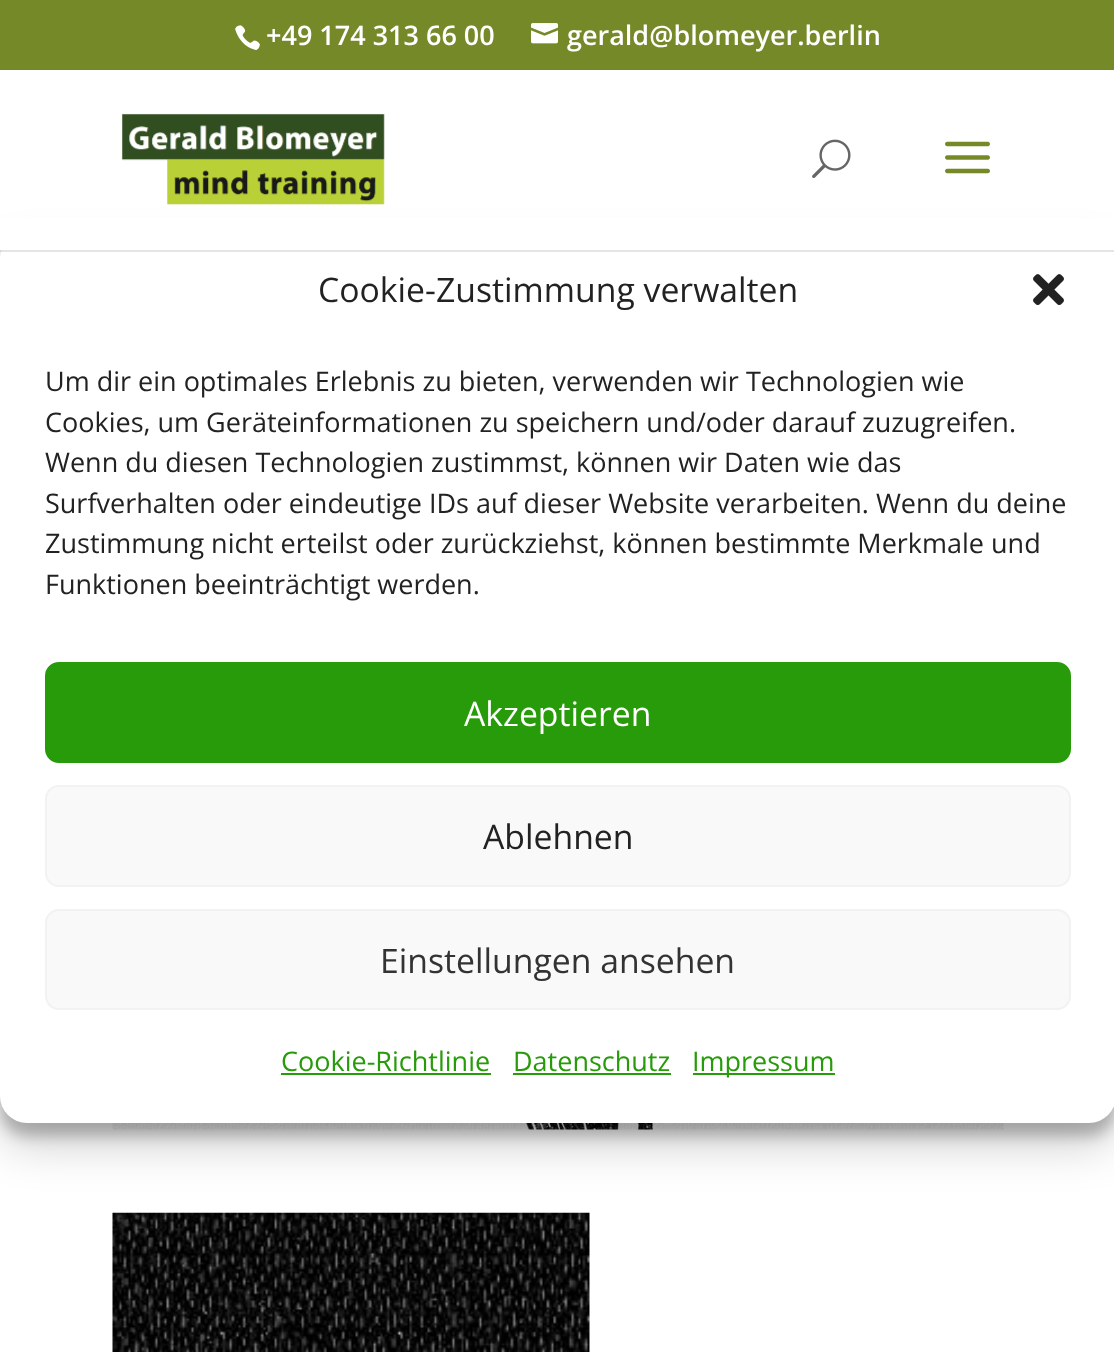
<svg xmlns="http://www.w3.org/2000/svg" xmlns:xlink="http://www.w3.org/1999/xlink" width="1114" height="1352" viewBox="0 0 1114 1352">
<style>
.cls-1{font:600 27px Open Sans;fill:#ffffff}
.cls-2{font:33.75px Open Sans;fill:#222222}
.cls-3{font:27px Open Sans;fill:#222222}
.cls-4{font:33.75px Open Sans;fill:#ffffff}
.cls-5{font:33.75px Open Sans;fill:#333333}
.cls-6{font:27px Open Sans;fill:#279b0a}
</style>
<rect width="100%" height="100%" fill="#ffffff"/>
<rect fill="#758929" x="0" y="0" width="1114" height="70"/>
<image xlink:href="image0.png" x="235" y="25" width="25" height="26"/>
<image xlink:href="image1.png" x="531" y="23" width="27" height="21"/>
<image xlink:href="image5.png" x="112" y="1123" width="892" height="7"/>
<rect fill="#000000" fill-opacity="0.23" filter="blur(7px)" x="0" y="245" width="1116" height="891" rx="27"/>
<image xlink:href="image6.png" x="112" y="1212" width="478" height="140"/>
<rect fill="#000000" fill-opacity="0.19" filter="blur(22.5px)" x="0" y="254" width="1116" height="891" rx="27"/>
<rect fill="#ffffff" x="0" y="232" width="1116" height="891" rx="27"/>
<rect fill="#000000" fill-opacity="0.1" x="0" y="250" width="1114" height="2"/>
<rect fill="#ffffff" x="0" y="218" width="1114" height="32"/>
<image xlink:href="image2.png" x="121" y="113" width="264" height="92"/>
<image xlink:href="image3.png" x="812" y="139" width="39" height="39"/>
<image xlink:href="image4.png" x="945" y="141" width="45" height="33"/>
<image xlink:href="image7.png" x="1033" y="274" width="31" height="31"/>
<rect fill="#279b0a" stroke="#279b0a" stroke-width="2" x="46" y="663" width="1024" height="99" rx="13"/>
<rect fill="#f9f9f9" stroke="#f2f2f2" stroke-width="2" x="46" y="786" width="1024" height="100" rx="13"/>
<rect fill="#f9f9f9" stroke="#f2f2f2" stroke-width="2" x="46" y="910" width="1024" height="99" rx="13"/>
<rect fill="#279b0a" x="281" y="1073" width="210" height="2"/>
<rect fill="#279b0a" x="513" y="1073" width="158" height="2"/>
<rect fill="#279b0a" x="693" y="1073" width="142" height="2"/>
<text class="cls-1" x="266" y="45">+49 174 313 66 00</text>
<text class="cls-1" x="567" y="45">gerald@blomeyer.berlin</text>
<text class="cls-2" x="318" y="302">Cookie-Zustimmung verwalten</text>
<text class="cls-3"><tspan x="45" y="391">Um dir ein optimales Erlebnis zu bieten, verwenden wir Technologien wie</tspan><tspan x="45" y="432">Cookies, um Geräteinformationen zu speichern und/oder darauf zuzugreifen.</tspan><tspan x="45" y="472">Wenn du diesen Technologien zustimmst, können wir Daten wie das</tspan><tspan x="45" y="513">Surfverhalten oder eindeutige IDs auf dieser Website verarbeiten. Wenn du deine</tspan><tspan x="45" y="553">Zustimmung nicht erteilst oder zurückziehst, können bestimmte Merkmale und</tspan><tspan x="45" y="594">Funktionen beeinträchtigt werden.</tspan></text>
<text class="cls-4" x="464" y="726">Akzeptieren</text>
<text class="cls-2" x="483" y="849">Ablehnen</text>
<text class="cls-5" x="380" y="973">Einstellungen ansehen</text>
<text class="cls-6" x="281" y="1071">Cookie-Richtlinie</text>
<text class="cls-6" x="513" y="1071">Datenschutz</text>
<text class="cls-6" x="692" y="1071">Impressum</text>
</svg>
